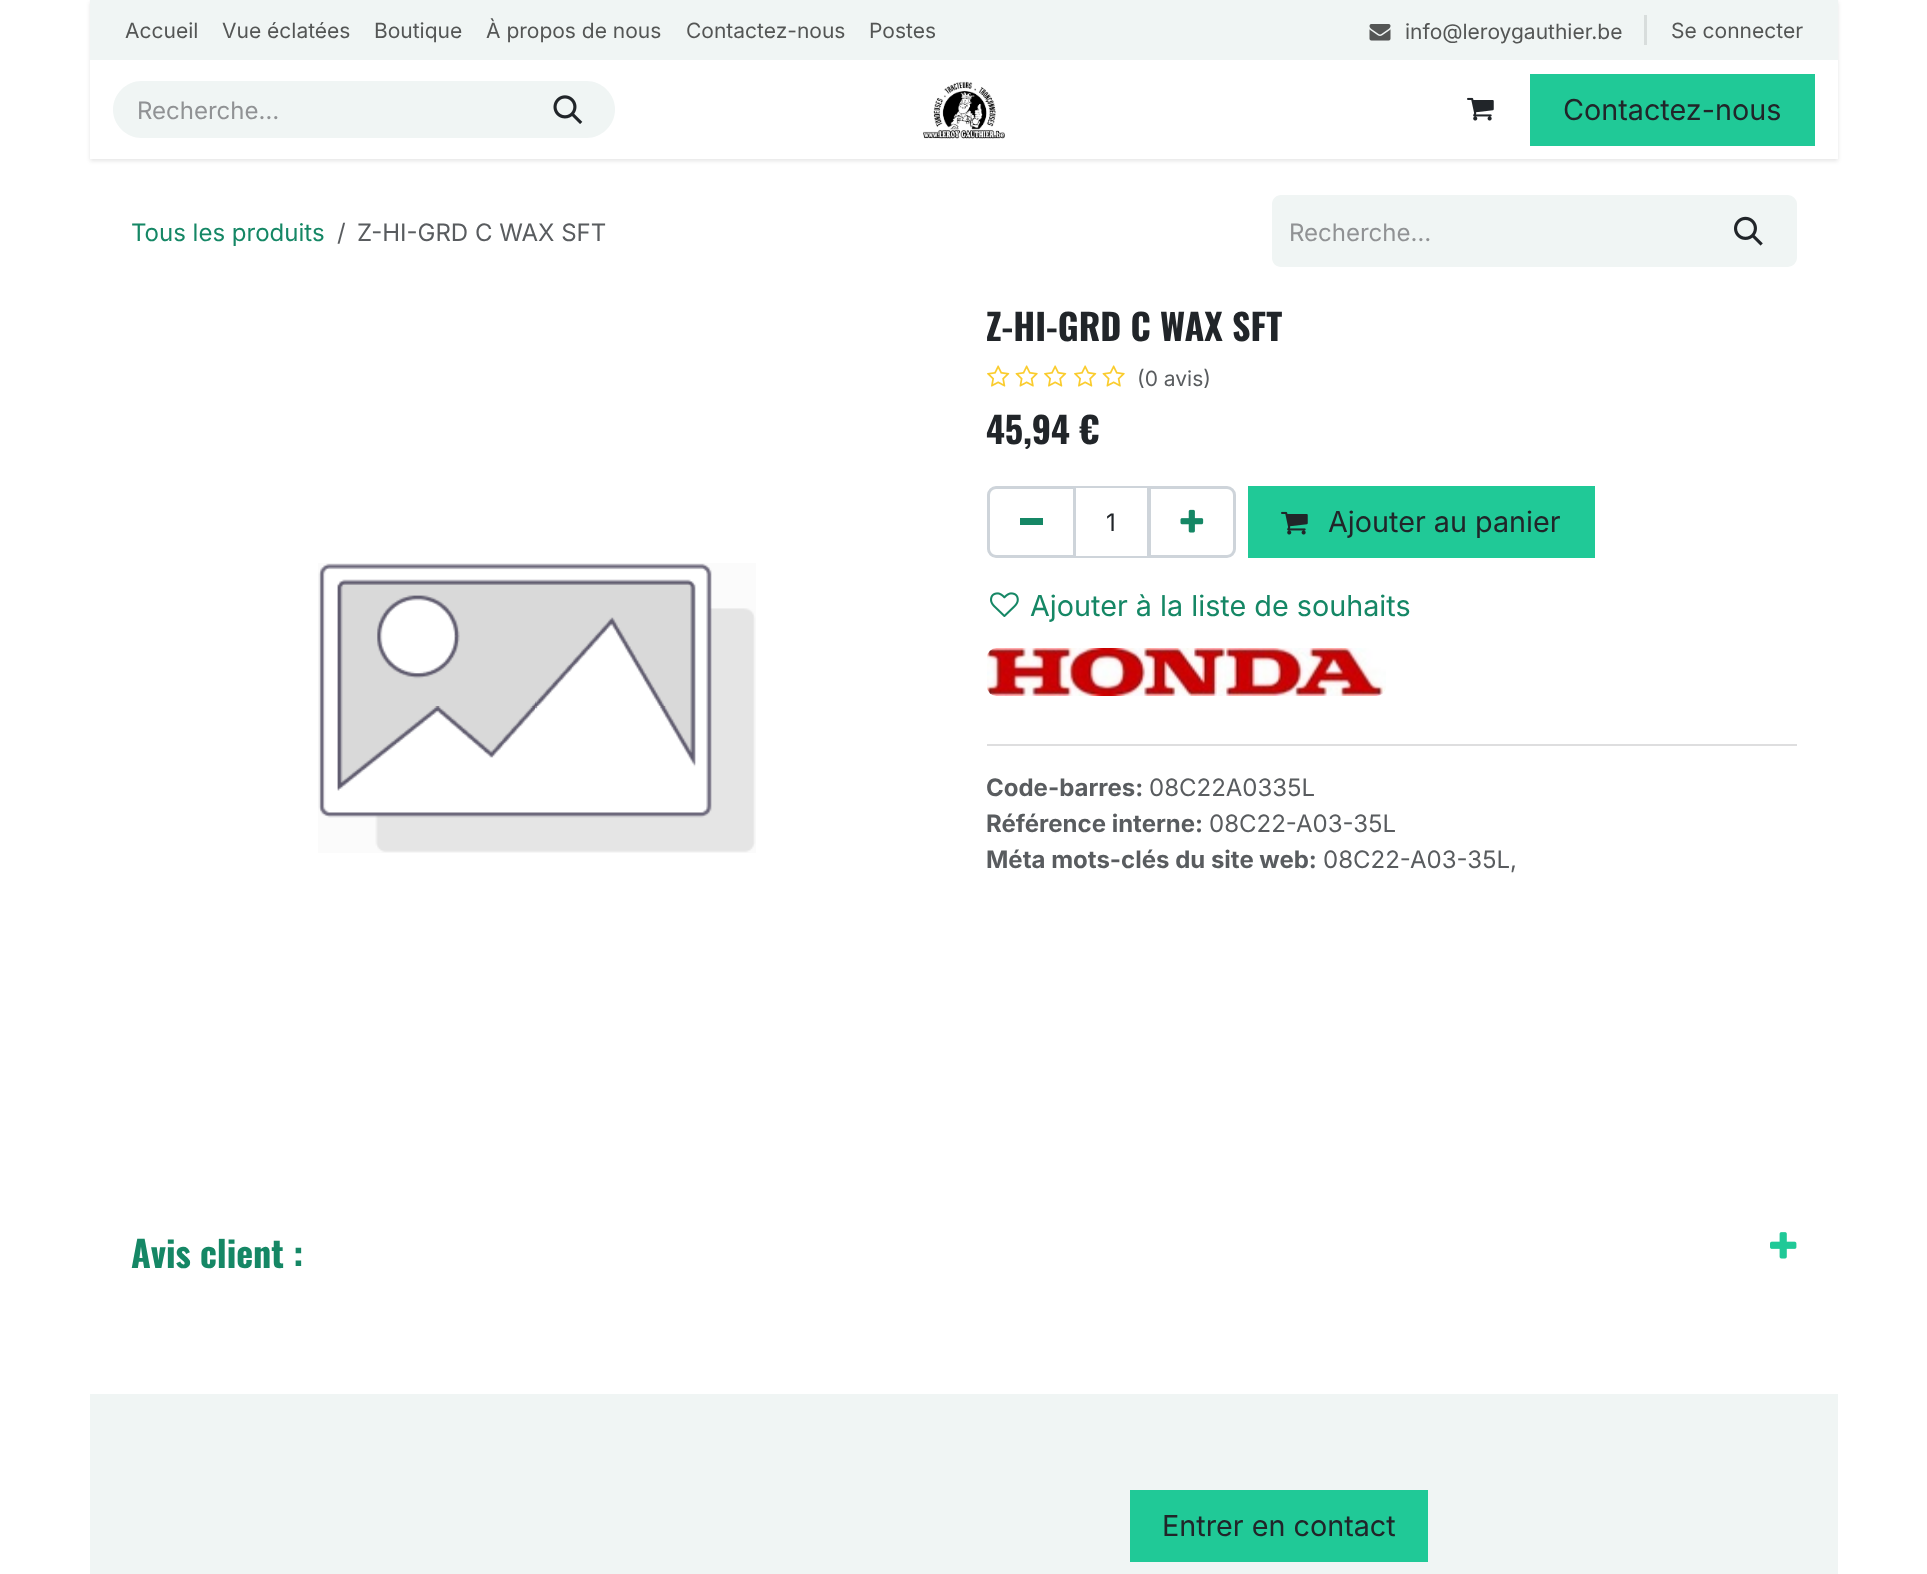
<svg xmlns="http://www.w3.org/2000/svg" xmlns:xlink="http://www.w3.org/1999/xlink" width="1927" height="1574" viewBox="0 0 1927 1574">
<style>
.cls-1{font:21px Inter;fill:#545655}
.cls-2{font:24px Inter;fill:#909294}
.cls-3{font:28.75px Inter;fill:#212529}
.cls-4{font:24px Inter;fill:#158765}
.cls-5{font:24px Inter;fill:#595c5f}
.cls-6{font:bold 36px Oswald;fill:#212529}
.cls-7{font:21px Inter;fill:#595c5f}
.cls-8{font:24px Inter;fill:#212529}
.cls-9{font:28.75px Inter;fill:#158765}
.cls-10{font:bold 24px Inter;fill:#595c5f}
.cls-11{font:bold 36px Oswald;fill:#158765}
</style>
<rect width="100%" height="100%" fill="#ffffff"/>
<rect fill="#000000" fill-opacity="0.1" filter="blur(2px)" x="90" y="2" width="1748" height="159"/>
<rect fill="#f0f5f4" x="90" y="0" width="1748" height="60"/>
<image xlink:href="image0.png" x="1369" y="24" width="22" height="17"/>
<rect fill="#d8dddc" x="1644" y="15" width="3" height="30"/>
<rect fill="#ffffff" x="90" y="60" width="1748" height="99"/>
<path fill="#f0f5f4" d="M141.5 81H522V138H141.5C126 138 113 125 113 109.5C113 94 126 81 141.5 81Z"/>
<path fill="#f0f5f4" d="M521 81H586.5C602 81 615 94 615 109.5C615 125 602 138 586.5 138H521Z"/>
<image xlink:href="image1.png" x="553" y="95" width="30" height="29"/>
<image xlink:href="image2.png" x="923" y="81" width="82" height="58"/>
<image xlink:href="image3.png" x="1467" y="97" width="27" height="24"/>
<rect fill="#20c997" stroke="#20c997" stroke-width="3" x="1531.5" y="75.5" width="282" height="69"/>
<path fill="#f0f5f4" d="M1281 195H1703V267H1281C1276 267 1272 263 1272 258V204C1272 199 1276 195 1281 195Z"/>
<path fill="#f0f5f4" stroke="#f0f5f4" stroke-width="3" d="M1702.5 196.5H1788C1792 196.5 1795.5 200 1795.5 204V258C1795.5 262 1792 265.5 1788 265.5H1702.5Z"/>
<image xlink:href="image4.png" x="1734" y="216" width="29" height="30"/>
<image xlink:href="image5.png" x="318" y="563" width="438" height="290"/>
<image xlink:href="image6.png" x="987" y="365" width="23" height="22"/>
<image xlink:href="image7.png" x="1015" y="365" width="23" height="22"/>
<image xlink:href="image6.png" x="1044" y="365" width="23" height="22"/>
<image xlink:href="image6.png" x="1074" y="365" width="23" height="22"/>
<image xlink:href="image7.png" x="1102" y="365" width="23" height="22"/>
<rect fill="none" stroke="#ced4da" stroke-width="2" x="1075" y="487" width="73" height="70"/>
<path fill="none" stroke="#ced4da" stroke-width="3" d="M996 487.5H1074.5V556.5H996C992 556.5 988.5 553 988.5 549V495C988.5 491 992 487.5 996 487.5Z"/>
<rect fill="#158765" x="1020" y="518" width="23" height="7"/>
<path fill="none" stroke="#ced4da" stroke-width="3" d="M1149.5 487.5H1227C1231 487.5 1234.5 491 1234.5 495V549C1234.5 553 1231 556.5 1227 556.5H1149.5Z"/>
<image xlink:href="image8.png" x="1180" y="509" width="24" height="24"/>
<rect fill="#20c997" stroke="#20c997" stroke-width="3" x="1249.5" y="487.5" width="344" height="69"/>
<image xlink:href="image9.png" x="1281" y="511" width="27" height="24"/>
<image xlink:href="image10.png" x="990" y="592" width="29" height="25"/>
<image xlink:href="image11.png" x="987" y="648" width="399" height="48"/>
<rect fill="#dededf" x="987" y="744" width="810" height="2"/>
<image xlink:href="image12.png" x="1770" y="1232" width="27" height="27"/>
<rect fill="#f0f5f4" x="90" y="1394" width="1748" height="180"/>
<rect fill="#20c997" stroke="#20c997" stroke-width="3" x="1131.5" y="1491.5" width="295" height="69"/>
<text class="cls-1" x="125" y="38">Accueil</text>
<text class="cls-1" x="222" y="38">Vue éclatées</text>
<text class="cls-1" x="374" y="38">Boutique</text>
<text class="cls-1" x="486" y="38">À propos de nous</text>
<text class="cls-1" x="686" y="38">Contactez-nous</text>
<text class="cls-1" x="869" y="38">Postes</text>
<text class="cls-1" x="1405" y="39">info@leroygauthier.be</text>
<text class="cls-1" x="1671" y="38">Se connecter</text>
<text class="cls-2" x="137" y="119">Recherche…</text>
<text class="cls-3" x="1563" y="120">Contactez-nous</text>
<text class="cls-4" x="131" y="241">Tous les produits</text>
<text class="cls-5" x="337" y="241">/</text>
<text class="cls-5" x="357" y="241">Z-HI-GRD C WAX SFT</text>
<text class="cls-2" x="1289" y="241">Recherche…</text>
<text class="cls-6" x="986" y="341">Z-HI-GRD C WAX SFT</text>
<text class="cls-7" x="1137" y="386">(0 avis)</text>
<text class="cls-6" x="986" y="444">45,94 €</text>
<text class="cls-8" x="1106" y="531">1</text>
<text class="cls-3" x="1328" y="532">Ajouter au panier</text>
<text class="cls-9" x="1030" y="616">Ajouter à la liste de souhaits</text>
<text class="cls-10" x="986" y="796">Code-barres:</text>
<text class="cls-5" x="1149" y="796">08C22A0335L</text>
<text class="cls-10" x="986" y="832">Référence interne:</text>
<text class="cls-5" x="1209" y="832">08C22-A03-35L</text>
<text class="cls-10" x="986" y="868">Méta mots-clés du site web:</text>
<text class="cls-5" x="1323" y="868">08C22-A03-35L,</text>
<text class="cls-11" x="131" y="1268">Avis client :</text>
<text class="cls-3" x="1162" y="1536">Entrer en contact</text>
</svg>
